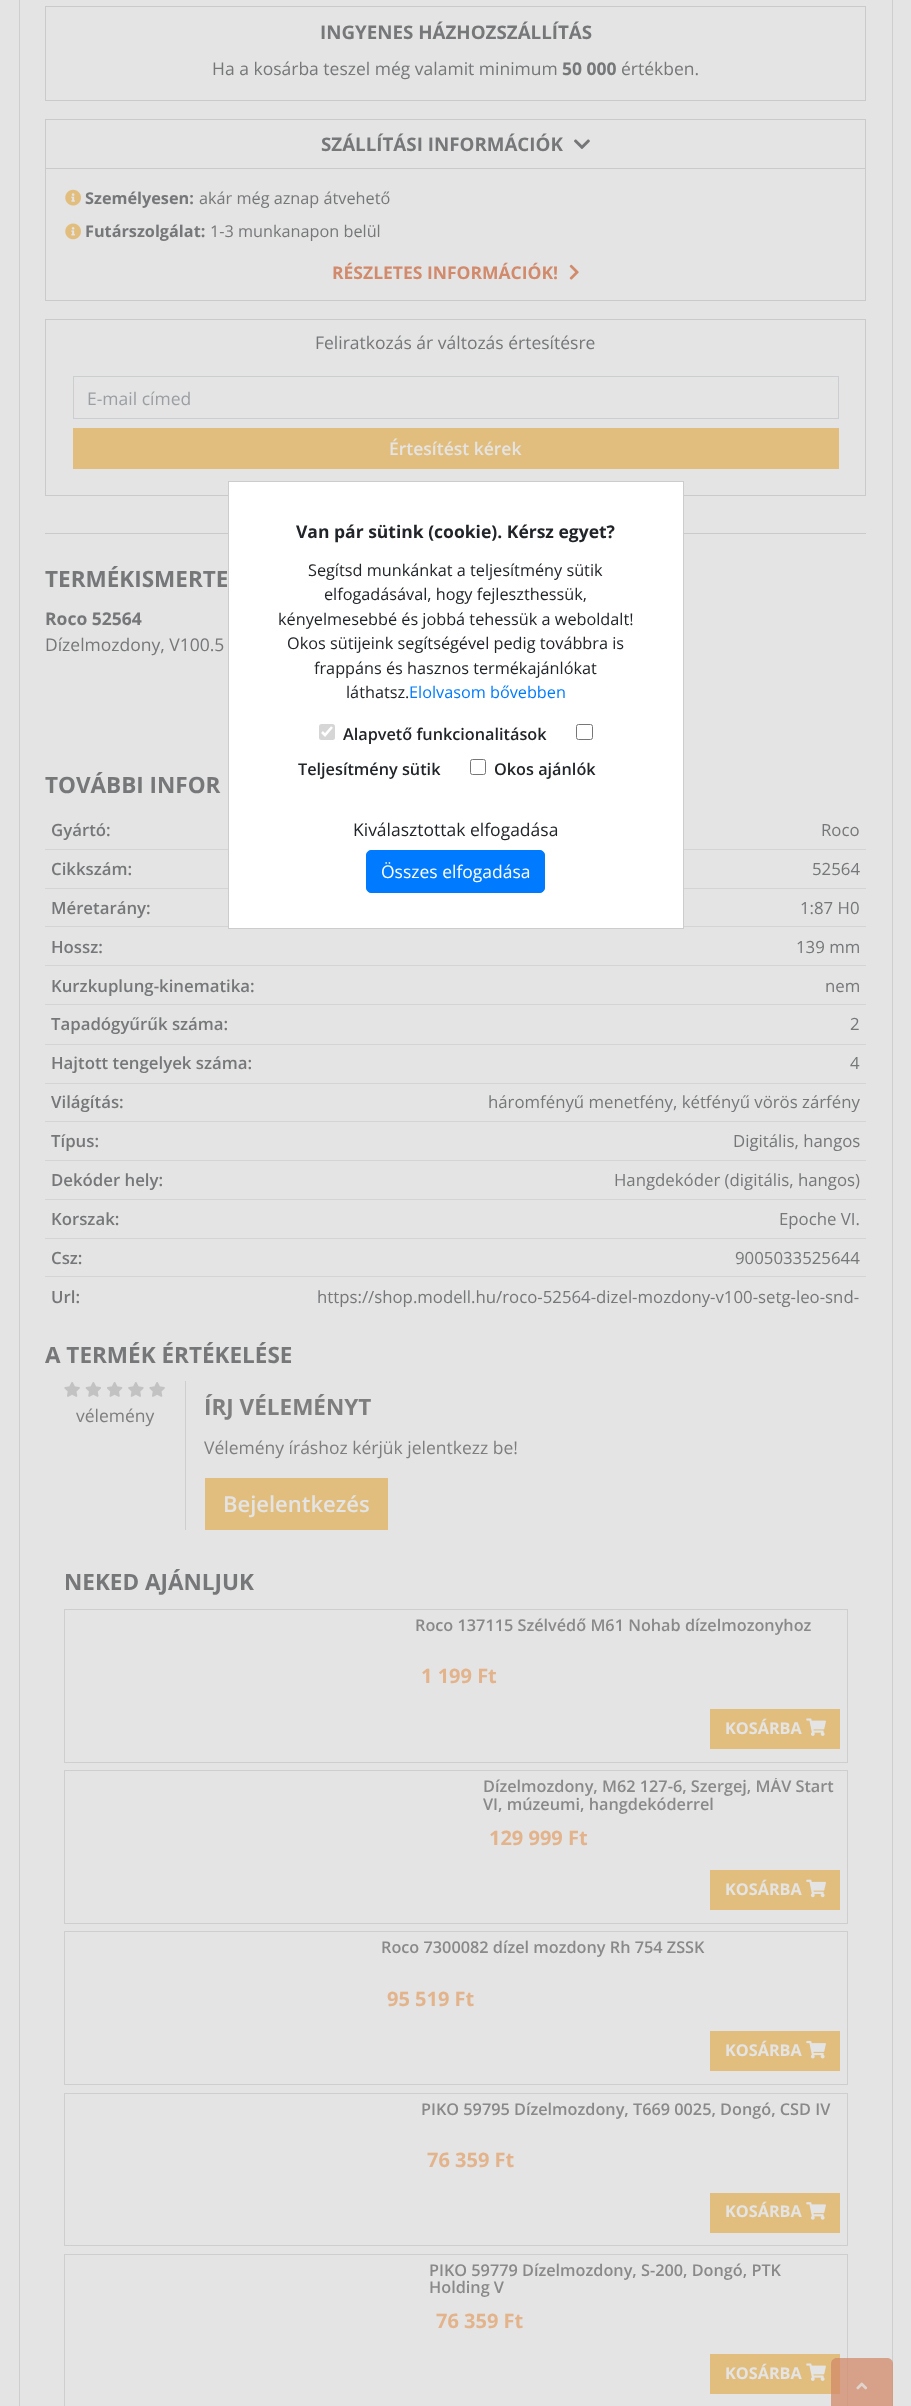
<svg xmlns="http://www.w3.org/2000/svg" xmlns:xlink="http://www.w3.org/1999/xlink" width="911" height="2406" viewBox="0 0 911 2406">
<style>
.cls-1{font:bold 18.75px Open Sans;fill:#757779}
.cls-2{font:17.5px Open Sans;fill:#757779}
.cls-3{font:bold 17.5px Open Sans;fill:#757779}
.cls-4{font:bold 16.25px Open Sans;fill:#757779}
.cls-5{font:16.25px Open Sans;fill:#757779}
.cls-6{font:bold 17.5px Open Sans;fill:#d18a6b}
.cls-7{font:17.5px Open Sans;fill:#9a9fa3}
.cls-8{font:600 17.5px Open Sans;fill:#e4e4e4}
.cls-9{font:bold 22.5px Open Sans;fill:#757779}
.cls-10{font:600 16.8px Open Sans;fill:#757779}
.cls-11{font:16.8px Open Sans;fill:#757779}
.cls-12{font:17.5px Open Sans;fill:#7e7e7e}
.cls-13{font:bold 22.5px Open Sans;fill:#7e7e7e}
.cls-14{font:600 22px Open Sans;fill:#e4e4e4}
.cls-15{font:600 16.25px Open Sans;fill:#898989}
.cls-16{font:bold 20px Open Sans;fill:#e3b38b}
.cls-17{font:bold 16.25px Open Sans;fill:#e4e4e4}
.cls-18{font:bold 17.5px Open Sans;fill:#212529}
.cls-19{font:16.25px Open Sans;fill:#212529}
.cls-20{font:16.25px Open Sans;fill:#007bff}
.cls-21{font:600 16.25px Open Sans;fill:#212529}
.cls-22{font:17.5px Open Sans;fill:#212529}
.cls-23{font:17.5px Open Sans;fill:#ffffff}
</style>
<defs>
<clipPath id="clip1"><rect x="483" y="1778" width="357" height="37"/></clipPath>
</defs>
<rect width="100%" height="100%" fill="#e4e4e4"/>
<rect fill="none" stroke="#cecece" x="19.5" y="-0.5" width="873" height="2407"/>
<rect fill="none" stroke="#cacaca" x="45.5" y="6.5" width="820" height="94"/>
<rect fill="none" stroke="#cacaca" x="45.5" y="119.5" width="820" height="181"/>
<rect fill="#cacaca" x="46" y="168" width="819" height="1"/>
<image xlink:href="image0.png" x="574" y="139" width="16" height="10"/>
<image xlink:href="image1.png" x="65" y="189" width="16" height="17"/>
<image xlink:href="image2.png" x="65" y="223" width="16" height="17"/>
<image xlink:href="image3.png" x="569" y="264" width="10" height="16"/>
<rect fill="none" stroke="#cacaca" x="45.5" y="319.5" width="820" height="176"/>
<rect fill="none" stroke="#cbced1" x="73.5" y="376.5" width="765" height="42"/>
<rect fill="#e2be7e" x="73" y="428" width="766" height="41"/>
<rect fill="#cacaca" x="45" y="533" width="821" height="1"/>
<rect fill="#d4d4d4" x="45" y="849" width="821" height="1"/>
<rect fill="#d4d4d4" x="45" y="888" width="821" height="1"/>
<rect fill="#d4d4d4" x="45" y="926" width="821" height="1"/>
<rect fill="#d4d4d4" x="45" y="965" width="821" height="1"/>
<rect fill="#d4d4d4" x="45" y="1004" width="821" height="1"/>
<rect fill="#d4d4d4" x="45" y="1044" width="821" height="1"/>
<rect fill="#d4d4d4" x="45" y="1083" width="821" height="1"/>
<rect fill="#d4d4d4" x="45" y="1121" width="821" height="1"/>
<rect fill="#d4d4d4" x="45" y="1160" width="821" height="1"/>
<rect fill="#d4d4d4" x="45" y="1199" width="821" height="1"/>
<rect fill="#d4d4d4" x="45" y="1238" width="821" height="1"/>
<rect fill="#d4d4d4" x="45" y="1276" width="821" height="1"/>
<image xlink:href="image4.png" x="64" y="1382" width="16" height="15"/>
<image xlink:href="image5.png" x="85" y="1382" width="16" height="15"/>
<image xlink:href="image6.png" x="107" y="1382" width="16" height="15"/>
<image xlink:href="image7.png" x="128" y="1382" width="16" height="15"/>
<image xlink:href="image4.png" x="149" y="1382" width="16" height="15"/>
<rect fill="#cecece" x="185" y="1381" width="1" height="149"/>
<rect fill="#e2be7e" x="205" y="1478" width="183" height="52"/>
<rect fill="none" stroke="#cecece" x="64.5" y="1609.5" width="783" height="153"/>
<rect fill="#e2be7e" x="710" y="1709" width="130" height="40"/>
<image xlink:href="image8.png" x="806" y="1718" width="20" height="18"/>
<rect fill="none" stroke="#cecece" x="64.5" y="1770.5" width="783" height="153"/>
<rect fill="#e2be7e" x="710" y="1870" width="130" height="40"/>
<image xlink:href="image9.png" x="806" y="1879" width="20" height="19"/>
<rect fill="none" stroke="#cecece" x="64.5" y="1931.5" width="783" height="153"/>
<rect fill="#e2be7e" x="710" y="2031" width="130" height="40"/>
<image xlink:href="image10.png" x="806" y="2040" width="20" height="19"/>
<rect fill="none" stroke="#cecece" x="64.5" y="2093.5" width="783" height="152"/>
<rect fill="#e2be7e" x="710" y="2193" width="130" height="40"/>
<image xlink:href="image11.png" x="806" y="2202" width="20" height="18"/>
<rect fill="none" stroke="#cecece" x="64.5" y="2254.5" width="783" height="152"/>
<rect fill="#e2be7e" x="710" y="2354" width="130" height="40"/>
<image xlink:href="image8.png" x="806" y="2363" width="20" height="18"/>
<rect fill="#ffffff" stroke="#cccccc" x="228.5" y="481.5" width="455" height="447"/>
<rect fill="#d6d6d6" x="319" y="724" width="16" height="16" rx="2.5"/>
<path fill="none" stroke="#ffffff" stroke-width="2.6" d="M322 732L325 735L332 727"/>
<rect fill="none" stroke="#767676" x="576.5" y="724.5" width="16" height="15" rx="2"/>
<rect fill="none" stroke="#767676" x="470.5" y="759.5" width="15" height="15" rx="2"/>
<rect fill="#007bff" stroke="#007bff" x="366.5" y="850.5" width="178" height="42" rx="4.5"/>
<path fill="#d18a6b" fill-opacity="0.75" d="M837 2358H887C890.5 2358 893 2360.5 893 2364V2406H831V2364C831 2360.5 833.5 2358 837 2358Z"/>
<image xlink:href="image12.png" x="856" y="2382" width="12" height="8"/>
<text class="cls-1" x="320" y="39">INGYENES HÁZHOZSZÁLLÍTÁS</text>
<text class="cls-2" x="212" y="75">Ha a kosárba teszel még valamit minimum</text>
<text class="cls-3" x="562" y="75">50 000</text>
<text class="cls-2" x="621" y="75">értékben.</text>
<text class="cls-1" x="321" y="151">SZÁLLÍTÁSI INFORMÁCIÓK</text>
<text class="cls-4" x="85" y="204">Személyesen:</text>
<text class="cls-5" x="199" y="204">akár még aznap átvehető</text>
<text class="cls-4" x="85" y="237">Futárszolgálat:</text>
<text class="cls-5" x="210" y="237">1-3 munkanapon belül</text>
<text class="cls-6" x="332" y="279">RÉSZLETES INFORMÁCIÓK!</text>
<text class="cls-2" x="315" y="349">Feliratkozás ár változás értesítésre</text>
<text class="cls-7" x="87" y="405">E-mail címed</text>
<text class="cls-8" x="389" y="455">Értesítést kérek</text>
<text class="cls-9" x="45" y="587">TERMÉKISMERTE</text>
<text class="cls-3" x="45" y="625">Roco 52564</text>
<text class="cls-2" x="45" y="651">Dízelmozdony, V100.5</text>
<text class="cls-9" x="45" y="793">TOVÁBBI INFOR</text>
<text class="cls-10" x="51" y="836">Gyártó:</text>
<text class="cls-11" x="821" y="836">Roco</text>
<text class="cls-10" x="51" y="875">Cikkszám:</text>
<text class="cls-11" x="812" y="875">52564</text>
<text class="cls-10" x="51" y="914">Méretarány:</text>
<text class="cls-11" x="800" y="914">1:87 H0</text>
<text class="cls-10" x="51" y="953">Hossz:</text>
<text class="cls-11" x="796" y="953">139 mm</text>
<text class="cls-10" x="51" y="992">Kurzkuplung-kinematika:</text>
<text class="cls-11" x="825" y="992">nem</text>
<text class="cls-10" x="51" y="1030">Tapadógyűrűk száma:</text>
<text class="cls-11" x="850" y="1030">2</text>
<text class="cls-10" x="51" y="1069">Hajtott tengelyek száma:</text>
<text class="cls-11" x="850" y="1069">4</text>
<text class="cls-10" x="51" y="1108">Világítás:</text>
<text class="cls-11" x="488" y="1108">háromfényű menetfény, kétfényű vörös zárfény</text>
<text class="cls-10" x="51" y="1147">Típus:</text>
<text class="cls-11" x="733" y="1147">Digitális, hangos</text>
<text class="cls-10" x="51" y="1186">Dekóder hely:</text>
<text class="cls-11" x="614" y="1186">Hangdekóder (digitális, hangos)</text>
<text class="cls-10" x="51" y="1225">Korszak:</text>
<text class="cls-11" x="779" y="1225">Epoche VI.</text>
<text class="cls-10" x="51" y="1264">Csz:</text>
<text class="cls-11" x="735" y="1264">9005033525644</text>
<text class="cls-10" x="51" y="1303">Url:</text>
<text class="cls-11" x="317" y="1303">https://shop.modell.hu/roco-52564-dizel-mozdony-v100-setg-leo-snd-</text>
<text class="cls-9" x="45" y="1363">A TERMÉK ÉRTÉKELÉSE</text>
<text class="cls-12" x="76" y="1422">vélemény</text>
<text class="cls-13" x="204" y="1415">ÍRJ VÉLEMÉNYT</text>
<text class="cls-12" x="204" y="1454">Vélemény íráshoz kérjük jelentkezz be!</text>
<text class="cls-14" x="223" y="1512">Bejelentkezés</text>
<text class="cls-9" x="64" y="1590">NEKED AJÁNLJUK</text>
<text class="cls-15" x="415" y="1631">Roco 137115 Szélvédő M61 Nohab dízelmozonyhoz</text>
<text class="cls-16" x="421" y="1683">1 199 Ft</text>
<text class="cls-17" x="725" y="1734">KOSÁRBA</text>
<g clip-path="url(#clip1)">
<text class="cls-15" x="483" y="1792">Dízelmozdony, M62 127-6, Szergej, MÁV Start</text>
</g>
<text class="cls-15" x="483" y="1810">VI, múzeumi, hangdekóderrel</text>
<text class="cls-16" x="489" y="1845">129 999 Ft</text>
<text class="cls-17" x="725" y="1895">KOSÁRBA</text>
<text class="cls-15" x="381" y="1953">Roco 7300082 dízel mozdony Rh 754 ZSSK</text>
<text class="cls-16" x="387" y="2006">95 519 Ft</text>
<text class="cls-17" x="725" y="2056">KOSÁRBA</text>
<text class="cls-15" x="421" y="2115">PIKO 59795 Dízelmozdony, T669 0025, Dongó, CSD IV</text>
<text class="cls-16" x="427" y="2167">76 359 Ft</text>
<text class="cls-17" x="725" y="2217">KOSÁRBA</text>
<text class="cls-15"><tspan x="429" y="2276">PIKO 59779 Dízelmozdony, S-200, Dongó, PTK</tspan><tspan x="429" y="2293">Holding V</tspan></text>
<text class="cls-16" x="436" y="2328">76 359 Ft</text>
<text class="cls-17" x="725" y="2379">KOSÁRBA</text>
<text class="cls-18" x="296" y="538">Van pár sütink (cookie). Kérsz egyet?</text>
<text class="cls-19" x="308" y="576">Segítsd munkánkat a teljesítmény sütik</text>
<text class="cls-19" x="324" y="600">elfogadásával, hogy fejleszthessük,</text>
<text class="cls-19" x="278" y="625">kényelmesebbé és jobbá tehessük a weboldalt!</text>
<text class="cls-19" x="287" y="649">Okos sütijeink segítségével pedig továbbra is</text>
<text class="cls-19" x="314" y="674">frappáns és hasznos termékajánlókat</text>
<text class="cls-19" x="346" y="698">láthatsz.</text>
<text class="cls-20" x="409" y="698">Elolvasom bővebben</text>
<text class="cls-21" x="343" y="740">Alapvető funkcionalitások</text>
<text class="cls-21" x="298" y="775">Teljesítmény sütik</text>
<text class="cls-21" x="494" y="775">Okos ajánlók</text>
<text class="cls-22" x="353" y="836">Kiválasztottak elfogadása</text>
<text class="cls-23" x="381" y="878">Összes elfogadása</text>
</svg>
